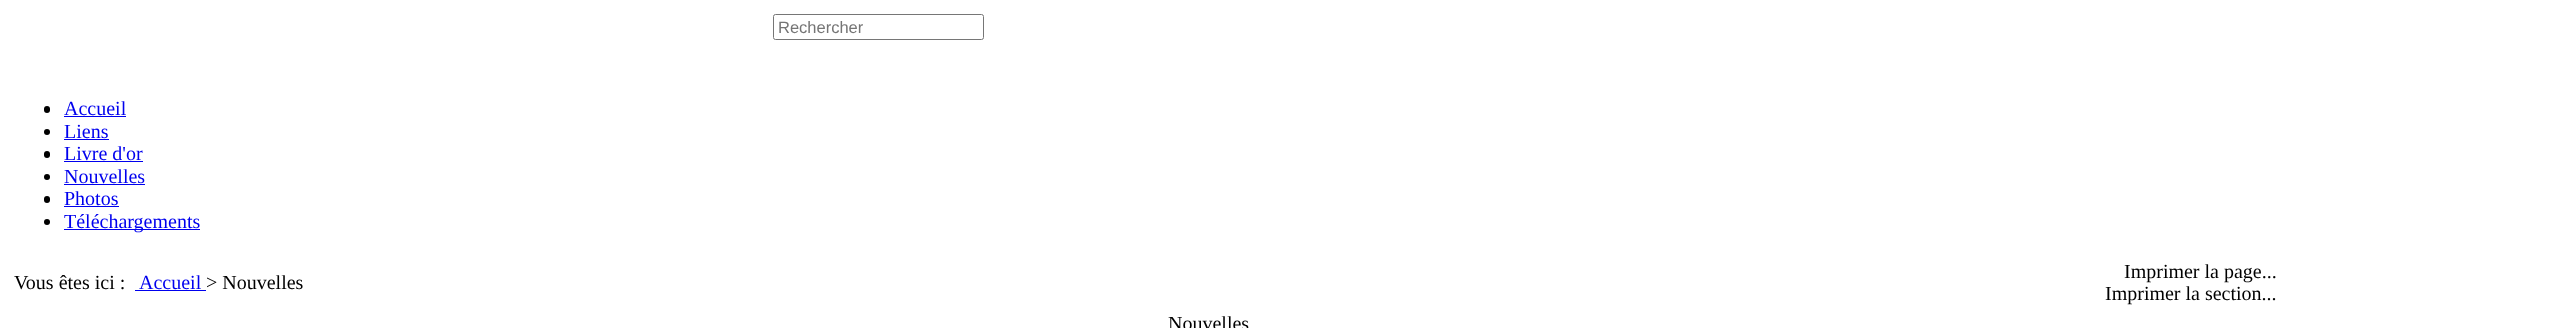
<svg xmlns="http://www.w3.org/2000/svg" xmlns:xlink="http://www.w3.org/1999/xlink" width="2564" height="328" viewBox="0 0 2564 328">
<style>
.cls-1{font:16.5px Liberation Sans;fill:#757575}
.cls-2{font:20px Liberation Serif;fill:#0000ee}
.cls-3{font:20px Liberation Serif;fill:#000000}
</style>
<rect width="100%" height="100%" fill="#ffffff"/>
<rect fill="none" stroke="#767676" x="773.5" y="14.5" width="210" height="25" rx="2"/>
<rect fill="#000000" x="44" y="106" width="6" height="7" rx="3"/>
<rect fill="#0000ee" x="64" y="116" width="62" height="1"/>
<circle fill="#000000" cx="47" cy="132" r="3"/>
<rect fill="#0000ee" x="64" y="139" width="45" height="1"/>
<rect fill="#000000" x="44" y="151" width="6" height="7" rx="3"/>
<rect fill="#0000ee" x="64" y="161" width="79" height="1"/>
<circle fill="#000000" cx="47" cy="177" r="3"/>
<rect fill="#0000ee" x="64" y="184" width="81" height="1"/>
<rect fill="#000000" x="44" y="196" width="6" height="7" rx="3"/>
<rect fill="#0000ee" x="64" y="206" width="55" height="1"/>
<circle fill="#000000" cx="47" cy="222" r="3"/>
<rect fill="#0000ee" x="64" y="229" width="136" height="1"/>
<rect fill="#0000ee" x="135" y="290" width="71" height="1"/>
<text class="cls-1" x="778" y="33">Rechercher</text>
<text class="cls-2"><tspan x="64" y="115">Accueil</tspan><tspan x="64" y="138">Liens</tspan><tspan x="64" y="160">Livre d'or</tspan><tspan x="64" y="183">Nouvelles</tspan><tspan x="64" y="205">Photos</tspan><tspan x="64" y="228">Téléchargements</tspan></text>
<text class="cls-3" x="14" y="289">Vous êtes ici :</text>
<text class="cls-2" x="139" y="289">Accueil</text>
<text class="cls-3" x="206" y="289">&gt; Nouvelles</text>
<text class="cls-3" x="2124" y="278">Imprimer la page...</text>
<text class="cls-3" x="2105" y="300">Imprimer la section...</text>
<text class="cls-3" x="1168" y="330">Nouvelles</text>
</svg>
